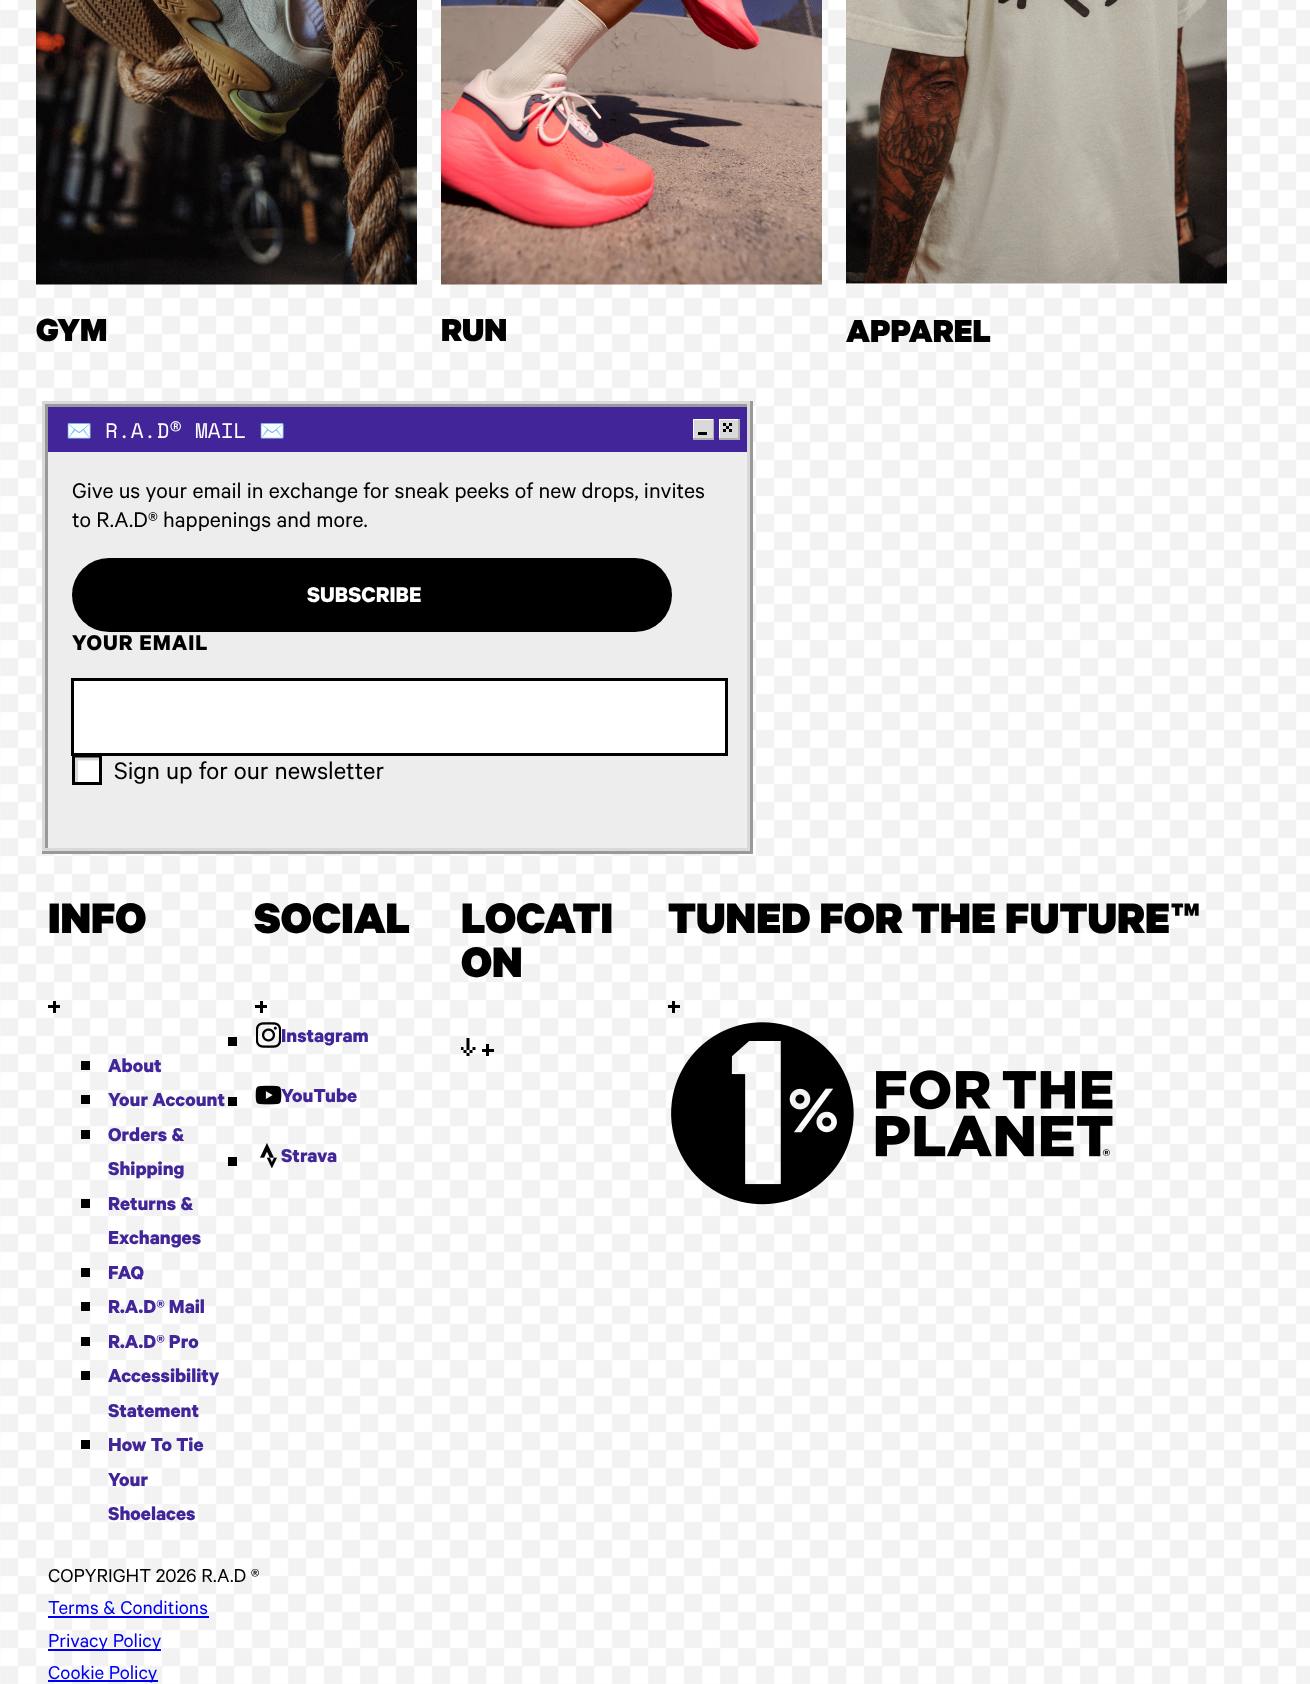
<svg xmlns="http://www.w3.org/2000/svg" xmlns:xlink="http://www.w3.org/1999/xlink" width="1310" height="1684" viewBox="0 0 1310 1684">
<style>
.cls-1{font:900 36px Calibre;fill:#000000}
.cls-2{font:21px Noto Color Emoji;fill:#ffffff}
.cls-3{font:21px Space Mono;fill:#ffffff}
.cls-4{font:24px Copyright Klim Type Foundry;fill:#000000}
.cls-5{font:bold 24px Copyright Klim Type Foundry;fill:#ffffff}
.cls-6{font:bold 24px Copyright Klim Type Foundry;letter-spacing:1px;fill:#000000}
.cls-7{font:27px Copyright Klim Type Foundry;fill:#000000}
.cls-8{font:900 48px Calibre;fill:#000000}
.cls-9{font:bold 21px Copyright Klim Type Foundry;fill:#422699}
.cls-10{font:21px Copyright Klim Type Foundry;fill:#000000}
.cls-11{font:21px Copyright Klim Type Foundry;fill:#0000ee}
</style>
<defs>
<clipPath id="clip1"><rect x="693" y="419" width="20" height="19"/></clipPath>
<clipPath id="clip2"><rect x="719" y="419" width="19" height="19"/></clipPath>
</defs>
<rect width="100%" height="100%" fill="#ffffff"/>
<image xlink:href="image0.png" x="0" y="0" width="1310" height="1684"/>
<image xlink:href="image1.png" x="36" y="0" width="381" height="285"/>
<image xlink:href="image2.png" x="441" y="0" width="381" height="285"/>
<image xlink:href="image3.png" x="846" y="0" width="381" height="285"/>
<rect fill="none" stroke="#999999" stroke-width="6" x="45" y="404" width="705" height="447"/>
<path fill="#d9d9d9" fill-rule="evenodd" d="M42 401V851H750V401ZM48 406V848H747V406Z"/>
<path fill="#999999" d="M45 404V848H747H48V406H747V404Z"/>
<path fill="#d9d9d9" d="M45 410V851H744V848H48V410Z"/>
<path fill="#999999" d="M45 407V848H744H48V407Z"/>
<rect fill="#ededed" x="48" y="452" width="699" height="396"/>
<rect fill="#422699" x="48" y="407" width="699" height="45"/>
<path fill="#afafaf" d="M693 438V440H713V420H712.5V438Z"/>
<rect fill="#afafaf" x="713" y="419" width="1" height="1"/>
<path fill="#afafaf" d="M695 438V440H714V420H712.5V438Z"/>
<rect fill="#d9d9d9" x="694" y="420" width="19" height="18"/>
<g clip-path="url(#clip1)">
<path fill="#ffffff" fill-rule="evenodd" d="M544 270H861V586H544ZM694 420H714V440H694Z"/>
</g>
<rect fill="#000000" x="698" y="432" width="9" height="3"/>
<rect fill="#afafaf" x="719" y="438" width="1" height="2"/>
<rect fill="#afafaf" x="738" y="419" width="2" height="1"/>
<path fill="#afafaf" d="M720 438V440H740V420H738V438Z"/>
<rect fill="#d9d9d9" x="720" y="420" width="18" height="18"/>
<g clip-path="url(#clip2)">
<path fill="#ffffff" fill-rule="evenodd" d="M570 270H886V586H570ZM720 420H740V440H720Z"/>
</g>
<image xlink:href="image4.png" x="723" y="423" width="9" height="9"/>
<rect fill="#000000" x="72" y="558" width="600" height="74" rx="37"/>
<rect fill="none" stroke="#000000" stroke-width="3" x="72.5" y="679.5" width="654" height="75"/>
<rect fill="#ffffff" x="74" y="681" width="651" height="72"/>
<rect fill="#ffffff" x="78" y="760" width="21" height="22"/>
<rect fill="none" stroke="#000000" stroke-width="3" x="73.5" y="756.5" width="27" height="27"/>
<path fill="none" stroke="#d9d9d9" stroke-width="3" d="M75 759H99"/>
<rect fill="#d9d9d9" x="75" y="758" width="3" height="24"/>
<rect fill="#000000" x="48" y="1005" width="12" height="3"/>
<rect fill="#000000" x="53" y="1001" width="3" height="12"/>
<rect fill="#000000" x="81" y="1061" width="9" height="9"/>
<rect fill="#000000" x="81" y="1095" width="9" height="9"/>
<rect fill="#000000" x="81" y="1130" width="9" height="9"/>
<rect fill="#000000" x="81" y="1199" width="9" height="9"/>
<rect fill="#000000" x="81" y="1268" width="9" height="9"/>
<rect fill="#000000" x="81" y="1302" width="9" height="9"/>
<rect fill="#000000" x="81" y="1337" width="9" height="9"/>
<rect fill="#000000" x="81" y="1371" width="9" height="9"/>
<rect fill="#000000" x="81" y="1440" width="9" height="9"/>
<rect fill="#000000" x="255" y="1005" width="12" height="3"/>
<rect fill="#000000" x="260" y="1001" width="3" height="12"/>
<rect fill="#000000" x="228" y="1037" width="9" height="9"/>
<image xlink:href="image5.png" x="256" y="1022" width="25" height="26"/>
<rect fill="#000000" x="228" y="1097" width="9" height="9"/>
<rect fill="#000000" x="228" y="1157" width="9" height="9"/>
<image xlink:href="image7.png" x="260" y="1143" width="17" height="25"/>
<image xlink:href="image8.png" x="461" y="1038" width="15" height="18"/>
<rect fill="#000000" x="482" y="1049" width="12" height="3"/>
<rect fill="#000000" x="486" y="1044" width="3" height="12"/>
<rect fill="#000000" x="668" y="1005" width="12" height="3"/>
<rect fill="#000000" x="672" y="1001" width="3" height="12"/>
<image xlink:href="image9.png" x="671" y="1022" width="442" height="183"/>
<rect fill="#0000ee" x="48" y="1616" width="161" height="2"/>
<rect fill="#0000ee" x="48" y="1649" width="113" height="2"/>
<rect fill="#0000ee" x="48" y="1680" width="110" height="2"/>
<text class="cls-1" x="36" y="341">GYM</text>
<text class="cls-1" x="441" y="341">RUN</text>
<text class="cls-1" x="846" y="342">APPAREL</text>
<text class="cls-2" x="66" y="438">✉️</text>
<text class="cls-3" x="105" y="438">R.A.D® MAIL</text>
<text class="cls-2" x="259" y="438">✉️</text>
<text class="cls-4"><tspan x="72" y="498">Give us your email in exchange for sneak peeks of new drops, invites</tspan><tspan x="72" y="527">to R.A.D® happenings and more.</tspan></text>
<text class="cls-5" x="307" y="602">SUBSCRIBE</text>
<text class="cls-6" x="72" y="650">YOUR EMAIL</text>
<text class="cls-7" x="114" y="779">Sign up for our newsletter</text>
<text class="cls-8" x="48" y="933">INFO</text>
<text class="cls-9"><tspan x="108" y="1072">About</tspan><tspan x="108" y="1106">Your Account</tspan><tspan x="108" y="1141">Orders &amp;</tspan><tspan x="108" y="1175">Shipping</tspan><tspan x="108" y="1210">Returns &amp;</tspan><tspan x="108" y="1244">Exchanges</tspan><tspan x="108" y="1279">FAQ</tspan><tspan x="108" y="1313">R.A.D® Mail</tspan><tspan x="108" y="1348">R.A.D® Pro</tspan><tspan x="108" y="1382">Accessibility</tspan><tspan x="108" y="1417">Statement</tspan><tspan x="108" y="1451">How To Tie</tspan><tspan x="108" y="1486">Your</tspan><tspan x="108" y="1520">Shoelaces</tspan></text>
<text class="cls-8" x="254" y="933">SOCIAL</text>
<text class="cls-9" x="281" y="1042">Instagram</text>
<text class="cls-9" x="281" y="1102">YouTube</text>
<image xlink:href="image6.png" x="255" y="1085" width="27" height="20"/>
<text class="cls-9" x="281" y="1162">Strava</text>
<text class="cls-8"><tspan x="461" y="933">LOCATI</tspan><tspan x="461" y="977">ON</tspan></text>
<text class="cls-8" x="668" y="933">TUNED FOR THE FUTURE™</text>
<text class="cls-10" x="48" y="1582">COPYRIGHT 2026 R.A.D ®</text>
<text class="cls-11"><tspan x="48" y="1614">Terms &amp; Conditions</tspan><tspan x="48" y="1647">Privacy Policy</tspan><tspan x="48" y="1679">Cookie Policy</tspan></text>
</svg>
